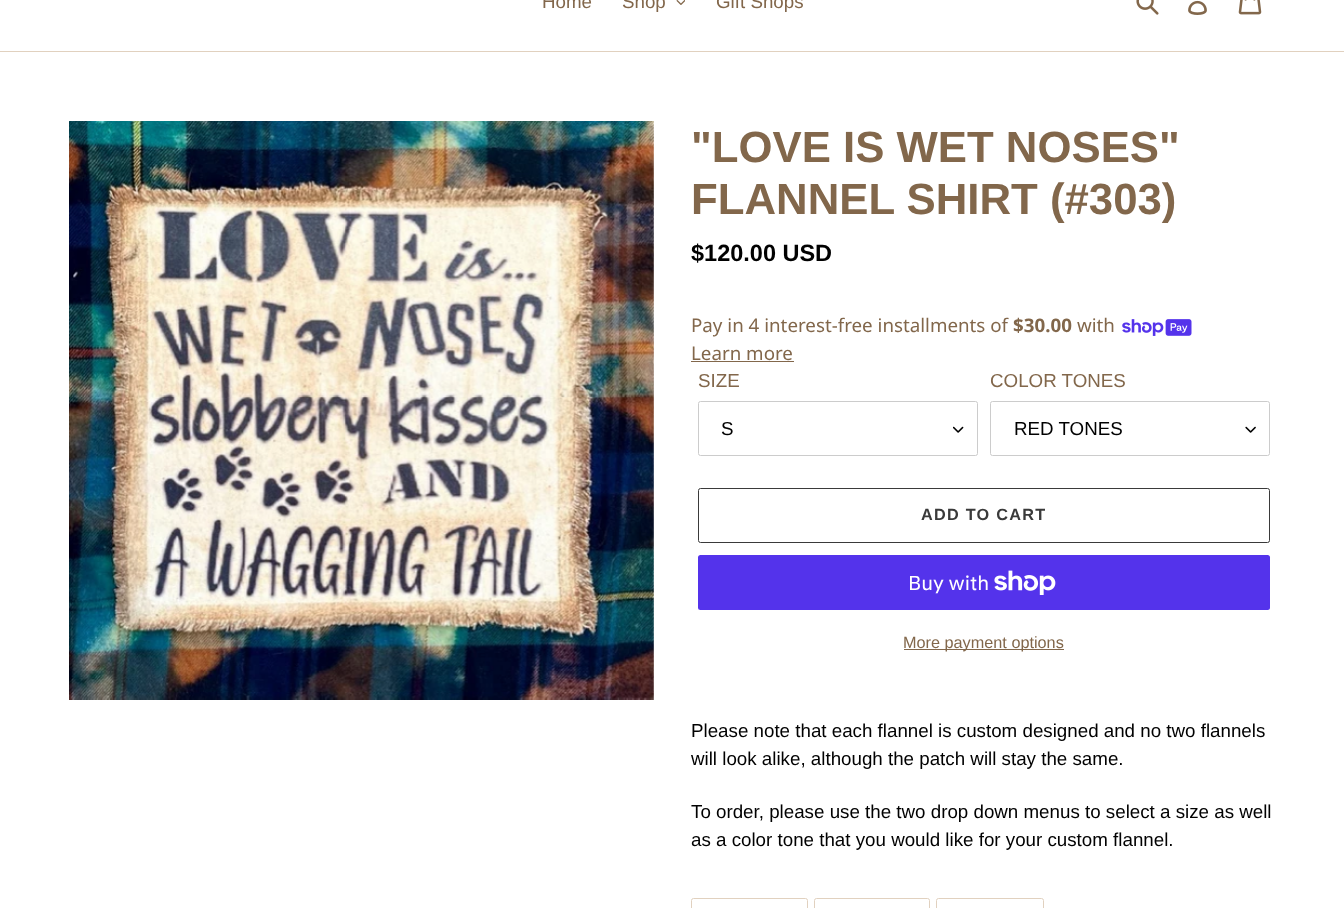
<svg xmlns="http://www.w3.org/2000/svg" xmlns:xlink="http://www.w3.org/1999/xlink" width="1344" height="908" viewBox="0 0 1344 908">
<style>
.cls-1{font:18.75px Liberation Sans;fill:#82674b}
.cls-2{font:bold 43.75px Liberation Sans;fill:#82674b}
.cls-3{font:bold 23.5px Liberation Sans;fill:#010101}
.cls-4{font:18.75px Noto Sans;fill:#82674b}
.cls-5{font:bold 18.75px Noto Sans;fill:#82674b}
.cls-6{font:18.75px Liberation Sans;fill:#010101}
.cls-7{font:bold 16.25px Liberation Sans;letter-spacing:1.25px;fill:#3a3a3a}
.cls-8{font:20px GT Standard;fill:#ffffff}
.cls-9{font:16.25px Liberation Sans;fill:#82674b}
</style>
<rect width="100%" height="100%" fill="#ffffff"/>
<rect fill="#e1d1bf" x="0" y="51" width="1344" height="1"/>
<image xlink:href="image0.png" x="676" y="0" width="9" height="5"/>
<image xlink:href="image1.png" x="1136" y="0" width="23" height="15"/>
<image xlink:href="image2.png" x="1188" y="0" width="19" height="15"/>
<image xlink:href="image3.png" x="1238" y="0" width="24" height="15"/>
<image xlink:href="image4.png" x="69" y="121" width="585" height="579"/>
<image xlink:href="image5.png" x="1122" y="319" width="70" height="17"/>
<rect fill="#82674b" x="691" y="361" width="103" height="1"/>
<image xlink:href="image6.png" x="953" y="426" width="11" height="7"/>
<rect fill="none" stroke="#cccccc" x="698.5" y="401.5" width="279" height="54" rx="2"/>
<image xlink:href="image7.png" x="1245" y="426" width="11" height="7"/>
<rect fill="none" stroke="#cccccc" x="990.5" y="401.5" width="279" height="54" rx="2"/>
<rect fill="none" stroke="#3a3a3a" x="698.5" y="488.5" width="571" height="54" rx="2"/>
<rect fill="#5433eb" x="698" y="555" width="572" height="55" rx="2.5"/>
<image xlink:href="image8.png" x="994" y="570" width="62" height="25"/>
<rect fill="#82674b" x="904" y="649" width="160" height="1"/>
<rect fill="none" stroke="#e1d1bf" x="691.5" y="898.5" width="116" height="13" rx="2"/>
<rect fill="none" stroke="#e1d1bf" x="814.5" y="898.5" width="115" height="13" rx="2"/>
<rect fill="none" stroke="#e1d1bf" x="936.5" y="898.5" width="107" height="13" rx="2"/>
<text class="cls-1" x="542" y="8">Home</text>
<text class="cls-1" x="622" y="8">Shop</text>
<text class="cls-1" x="716" y="8">Gift Shops</text>
<text class="cls-2"><tspan x="691" y="162">"LOVE IS WET NOSES"</tspan><tspan x="691" y="214">FLANNEL SHIRT (#303)</tspan></text>
<text class="cls-3" x="691" y="261">$120.00 USD</text>
<text class="cls-4" x="691" y="332">Pay in 4 interest-free installments of</text>
<text class="cls-5" x="1013" y="332">$30.00</text>
<text class="cls-4" x="1077" y="332">with</text>
<text class="cls-4" x="691" y="360">Learn more</text>
<text class="cls-1" x="698" y="387">SIZE</text>
<text class="cls-6" x="721" y="435">S</text>
<text class="cls-1" x="990" y="387">COLOR TONES</text>
<text class="cls-6" x="1014" y="435">RED TONES</text>
<text class="cls-7" x="921" y="520">ADD TO CART</text>
<text class="cls-8" x="908" y="590">Buy with</text>
<text class="cls-9" x="903" y="648">More payment options</text>
<text class="cls-6"><tspan x="691" y="737">Please note that each flannel is custom designed and no two flannels</tspan><tspan x="691" y="765">will look alike, although the patch will stay the same.</tspan></text>
<text class="cls-6"><tspan x="691" y="818">To order, please use the two drop down menus to select a size as well</tspan><tspan x="691" y="846">as a color tone that you would like for your custom flannel.</tspan></text>
</svg>
